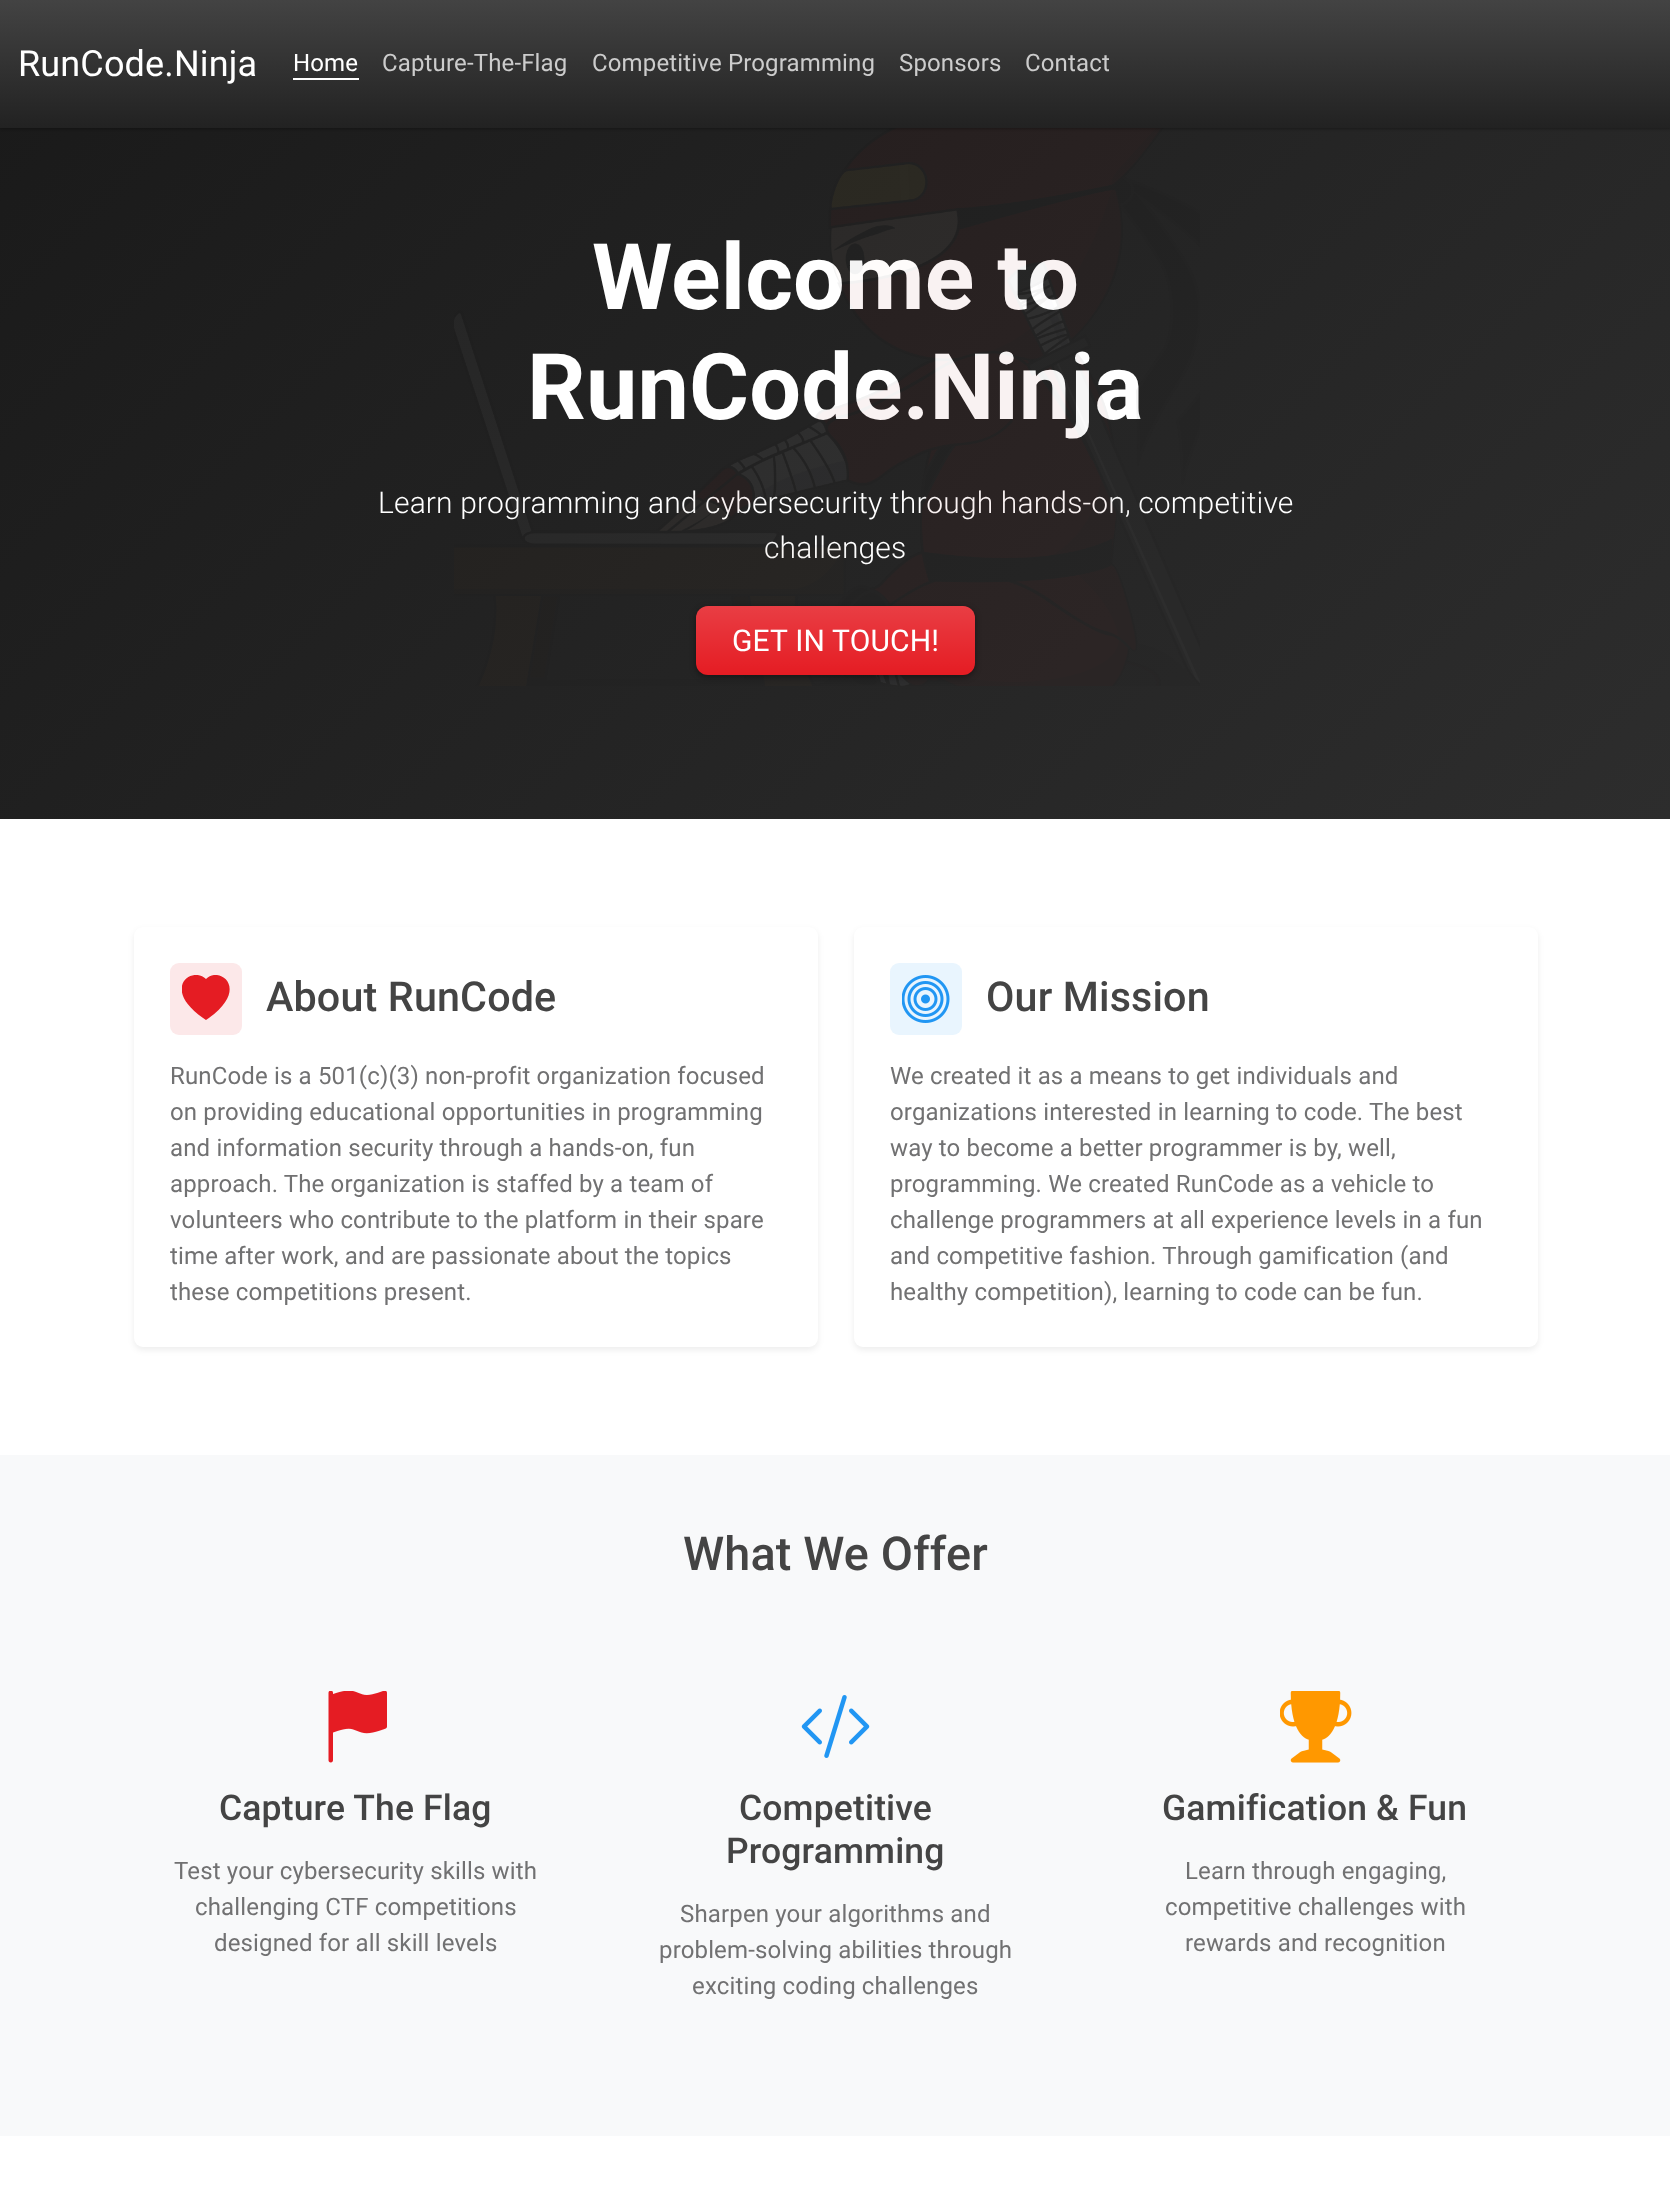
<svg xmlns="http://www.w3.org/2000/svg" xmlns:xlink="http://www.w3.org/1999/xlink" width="1670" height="2212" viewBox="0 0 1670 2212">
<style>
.cls-1{font:bold 91.75px Roboto;letter-spacing:0.15px;fill:#ffffff}
.cls-2{font:300 30px Roboto;letter-spacing:0.15px;fill:#ffffff}
.cls-3{font:24px Roboto;letter-spacing:0.15px;fill:#cccccc}
.cls-4{font:24px Roboto;letter-spacing:0.15px;fill:#ffffff}
.cls-5{font:36px Roboto;letter-spacing:0.15px;fill:#ffffff}
.cls-6{font:30px Roboto;letter-spacing:0.15px;fill:#ffffff}
.cls-7{font:500 41.25px Roboto;letter-spacing:0.15px;fill:#444444}
.cls-8{font:24px Roboto;letter-spacing:0.15px;fill:#717172}
.cls-9{font:500 46.75px Roboto;letter-spacing:0.15px;fill:#444444}
.cls-10{font:500 35.5px Roboto;letter-spacing:0.15px;fill:#444444}
</style>
<defs>
<linearGradient id="g1" gradientUnits="userSpaceOnUse" x1="233" y1="-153" x2="1438" y2="1052"><stop offset="0" stop-color="#1a1a1a"/><stop offset="1" stop-color="#2d2d2d"/></linearGradient>
<clipPath id="clip1"><rect x="182" y="975" width="48" height="48"/></clipPath>
<linearGradient id="g2" gradientUnits="userSpaceOnUse" x1="836" y1="0" x2="836" y2="128"><stop offset="0" stop-color="#434343"/><stop offset="1" stop-color="#222222"/></linearGradient>
<linearGradient id="g3" gradientUnits="userSpaceOnUse" x1="836" y1="606" x2="836" y2="675"><stop offset="0" stop-color="#ffffff" stop-opacity="0.15"/><stop offset="1" stop-color="#ffffff" stop-opacity="0"/></linearGradient>
</defs>
<rect width="100%" height="100%" fill="#ffffff"/>
<rect fill="url(#g1)" x="0" y="128" width="1670" height="691"/>
<rect fill="#000000" fill-opacity="0.07" filter="blur(3px)" x="134" y="930" width="684" height="420" rx="9"/>
<rect fill="#ffffff" x="134" y="927" width="684" height="420" rx="9"/>
<rect fill="#fce8e9" x="170" y="963" width="72" height="72" rx="9"/>
<g clip-path="url(#clip1)">
<path fill="#e51c23" fill-rule="evenodd" d="M206 979C219 965 252 989 206 1020C159 989 192 965 206 979"/>
</g>
<rect fill="#000000" fill-opacity="0.07" filter="blur(3px)" x="854" y="930" width="684" height="420" rx="9"/>
<rect fill="#ffffff" x="854" y="927" width="684" height="420" rx="9"/>
<rect fill="#e9f5fe" x="890" y="963" width="72" height="72" rx="9"/>
<image xlink:href="image1.png" x="902" y="975" width="48" height="48"/>
<rect fill="#f8f9fa" x="0" y="1455" width="1670" height="681"/>
<image xlink:href="image2.png" x="328" y="1691" width="59" height="72"/>
<image xlink:href="image3.png" x="801" y="1695" width="69" height="63"/>
<image xlink:href="image4.png" x="1280" y="1691" width="72" height="72"/>
<text class="cls-1" x="592" y="309">Welcome to</text>
<text class="cls-1" x="527" y="419">RunCode.Ninja</text>
<text class="cls-2" x="378" y="513">Learn programming and cybersecurity through hands-on, competitive</text>
<text class="cls-2" x="764" y="558">challenges</text>
<image xlink:href="image0.png" x="454" y="128" width="746" height="558"/>
<rect fill="#000000" fill-opacity="0.3" filter="blur(1.5px)" x="0" y="2" width="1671" height="127"/>
<rect fill="url(#g2)" x="0" y="0" width="1670" height="128"/>
<text class="cls-3" x="1025" y="71">Contact</text>
<text class="cls-3" x="899" y="71">Sponsors</text>
<text class="cls-3" x="592" y="71">Competitive Programming</text>
<text class="cls-3" x="382" y="71">Capture-The-Flag</text>
<text class="cls-4" x="293" y="71">Home</text>
<rect fill="#ffffff" x="293" y="78" width="66" height="2"/>
<text class="cls-5" x="18" y="76">RunCode.Ninja</text>
<rect fill="#000000" fill-opacity="0.4" filter="blur(3px)" x="696" y="608" width="279" height="69" rx="12"/>
<rect fill="#e51c23" x="696" y="606" width="279" height="69" rx="12"/>
<rect fill="url(#g3)" x="696" y="606" width="279" height="69" rx="12"/>
<text class="cls-6" x="732" y="651">GET IN TOUCH!</text>
<text class="cls-7" x="266" y="1011">About RunCode</text>
<text class="cls-8"><tspan x="170" y="1084">RunCode is a 501(c)(3) non-profit organization focused</tspan><tspan x="170" y="1120">on providing educational opportunities in programming</tspan><tspan x="170" y="1156">and information security through a hands-on, fun</tspan><tspan x="170" y="1192">approach. The organization is staffed by a team of</tspan><tspan x="170" y="1228">volunteers who contribute to the platform in their spare</tspan><tspan x="170" y="1264">time after work, and are passionate about the topics</tspan><tspan x="170" y="1300">these competitions present.</tspan></text>
<text class="cls-7" x="986" y="1011">Our Mission</text>
<text class="cls-8"><tspan x="890" y="1084">We created it as a means to get individuals and</tspan><tspan x="890" y="1120">organizations interested in learning to code. The best</tspan><tspan x="890" y="1156">way to become a better programmer is by, well,</tspan><tspan x="890" y="1192">programming. We created RunCode as a vehicle to</tspan><tspan x="890" y="1228">challenge programmers at all experience levels in a fun</tspan><tspan x="890" y="1264">and competitive fashion. Through gamification (and</tspan><tspan x="890" y="1300">healthy competition), learning to code can be fun.</tspan></text>
<text class="cls-9" x="683" y="1570">What We Offer</text>
<text class="cls-10" x="219" y="1820">Capture The Flag</text>
<text class="cls-8" x="174" y="1879">Test your cybersecurity skills with</text>
<text class="cls-8" x="195" y="1915">challenging CTF competitions</text>
<text class="cls-8" x="214" y="1951">designed for all skill levels</text>
<text class="cls-10" x="739" y="1820">Competitive</text>
<text class="cls-10" x="726" y="1863">Programming</text>
<text class="cls-8" x="680" y="1922">Sharpen your algorithms and</text>
<text class="cls-8" x="659" y="1958">problem-solving abilities through</text>
<text class="cls-8" x="692" y="1994">exciting coding challenges</text>
<text class="cls-10" x="1162" y="1820">Gamification &amp; Fun</text>
<text class="cls-8" x="1185" y="1879">Learn through engaging,</text>
<text class="cls-8" x="1165" y="1915">competitive challenges with</text>
<text class="cls-8" x="1185" y="1951">rewards and recognition</text>
</svg>
